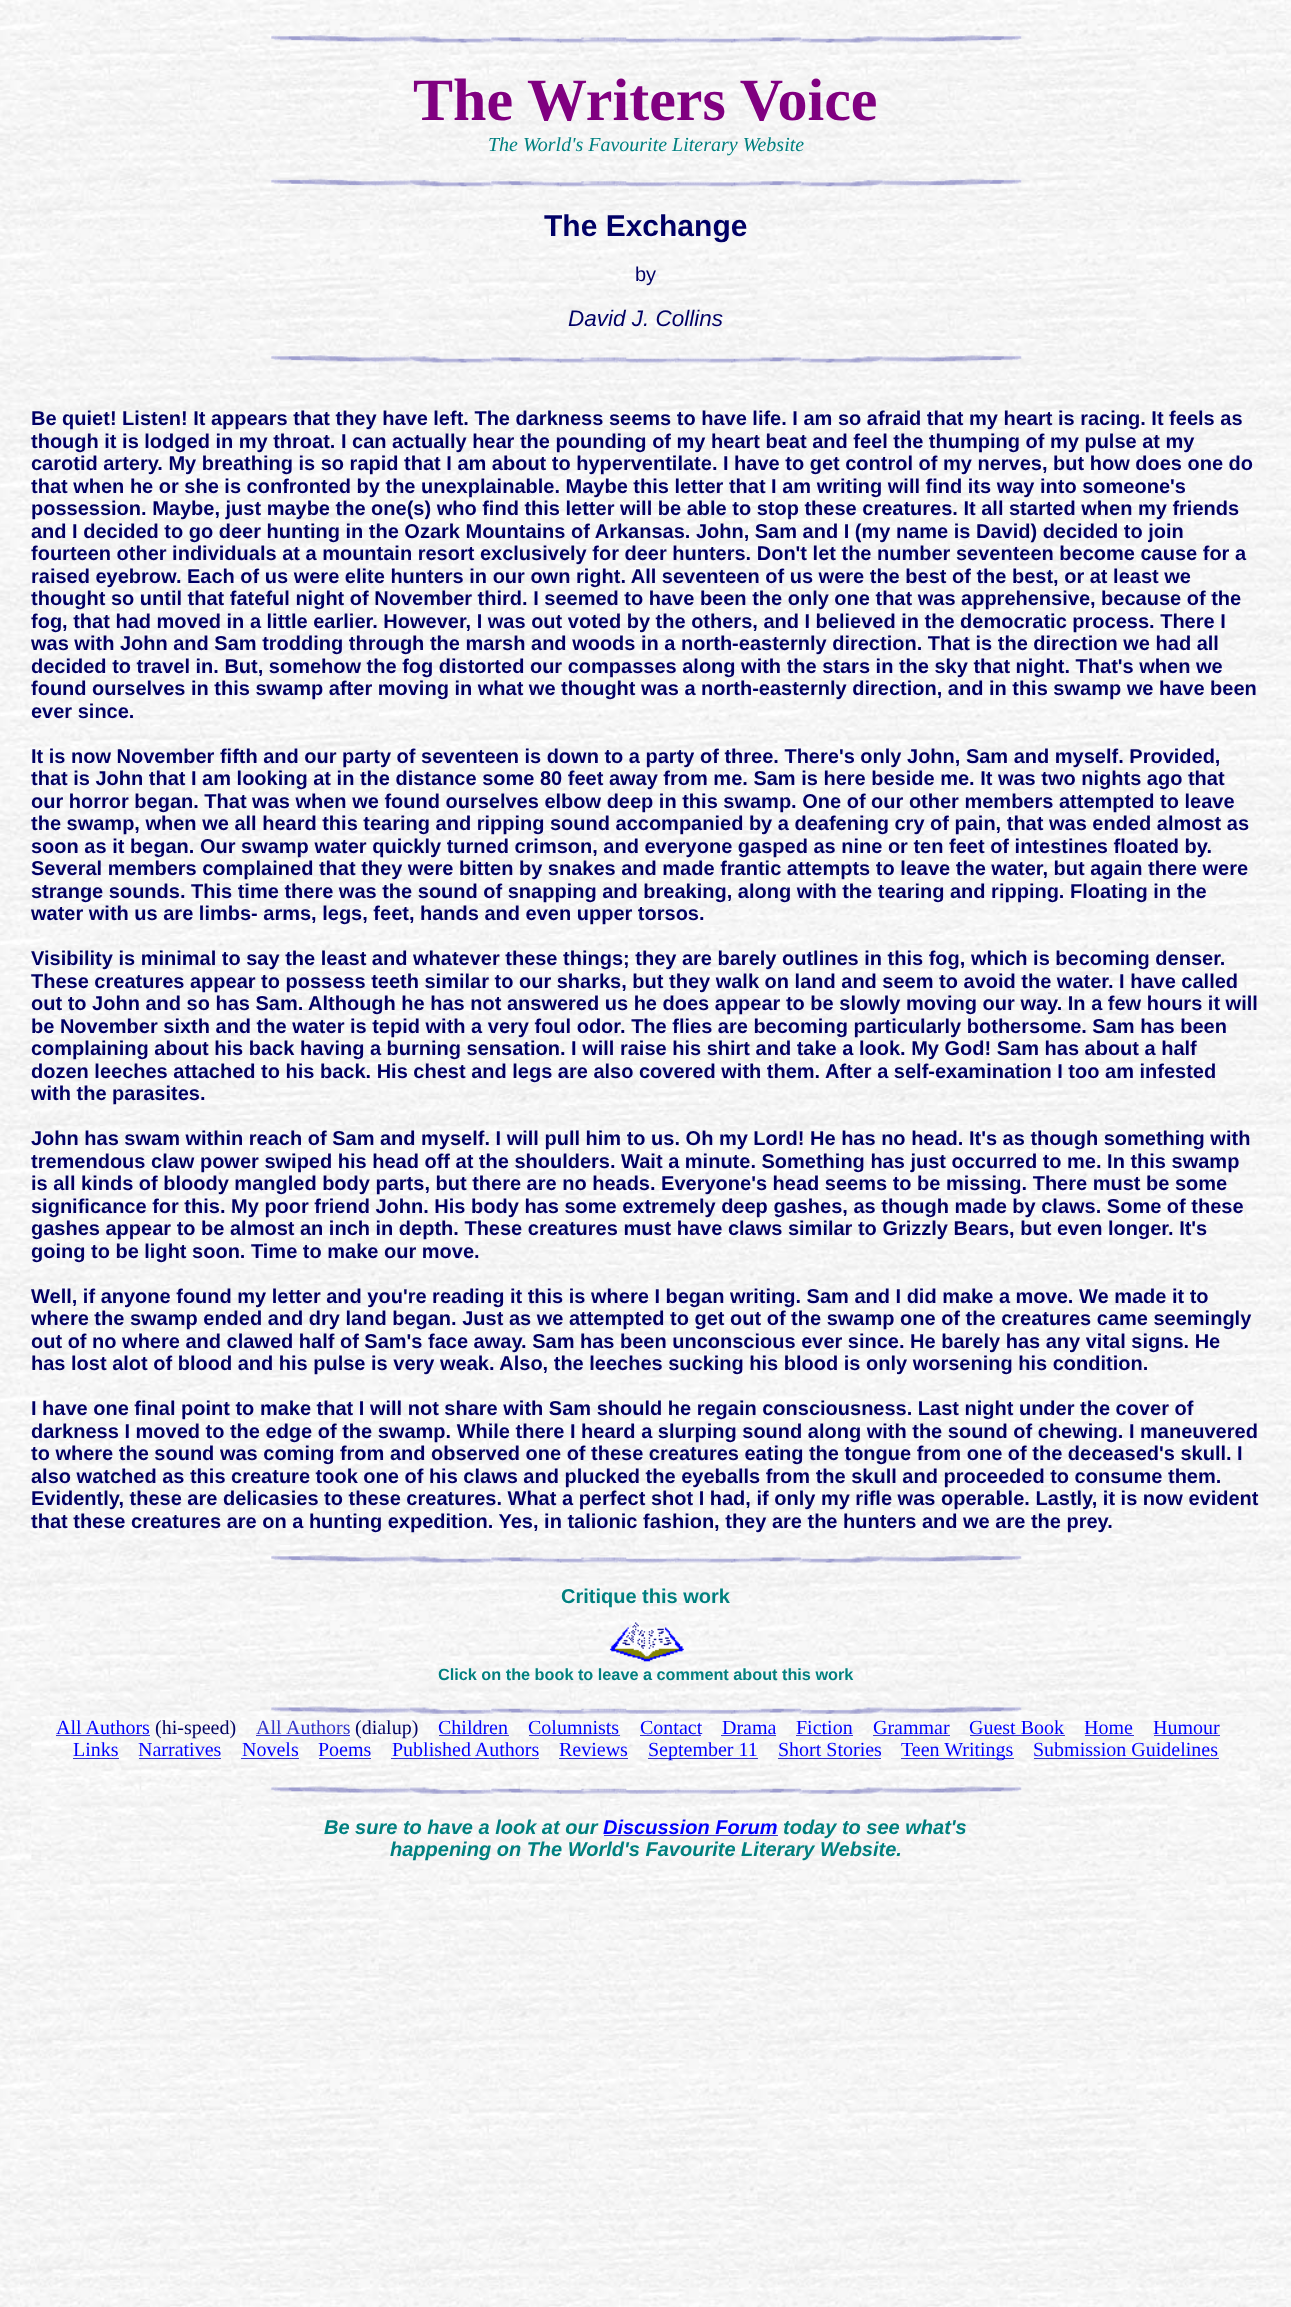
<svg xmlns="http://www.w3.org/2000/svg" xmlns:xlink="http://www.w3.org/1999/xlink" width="1291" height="2307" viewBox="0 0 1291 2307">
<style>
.cls-1{font:bold 60px Liberation Serif;fill:#800080}
.cls-2{font:italic 20px Liberation Serif;fill:#008080}
.cls-3{font:bold 30px Liberation Sans;fill:#000066}
.cls-4{font:20px Liberation Sans;fill:#000066}
.cls-5{font:italic 22.5px Liberation Sans;fill:#000066}
.cls-6{font:bold 20px Liberation Sans;fill:#000066}
.cls-7{font:bold 20px Liberation Sans;fill:#008080}
.cls-8{font:bold 16.25px Liberation Sans;fill:#008080}
.cls-9{font:20px Liberation Serif;fill:#0000ff}
.cls-10{font:20px Liberation Serif;fill:#000066}
.cls-11{font:20px Liberation Serif;fill:#3333cc}
.cls-12{font:italic bold 20px Liberation Sans;fill:#008080}
.cls-13{font:italic bold 20px Liberation Sans;fill:#0000ff}
</style>
<rect width="100%" height="100%" fill="#ffffff"/>
<image xlink:href="image0.png" x="0" y="0" width="1291" height="2307"/>
<image xlink:href="image1.png" x="271" y="35" width="751" height="8"/>
<image xlink:href="image2.png" x="271" y="178" width="751" height="9"/>
<image xlink:href="image3.png" x="271" y="355" width="751" height="8"/>
<image xlink:href="image4.png" x="271" y="1555" width="751" height="8"/>
<image xlink:href="image5.png" x="609" y="1619" width="75" height="43"/>
<image xlink:href="image6.png" x="271" y="1706" width="751" height="8"/>
<image xlink:href="image7.png" x="31" y="1716" width="1229" height="145"/>
<rect fill="#3333cc" x="56" y="1735" width="94" height="1"/>
<rect fill="#3333cc" x="256" y="1735" width="94" height="1"/>
<rect fill="#3333cc" x="439" y="1735" width="70" height="1"/>
<rect fill="#3333cc" x="529" y="1735" width="91" height="1"/>
<rect fill="#3333cc" x="640" y="1735" width="61" height="1"/>
<rect fill="#3333cc" x="721" y="1735" width="55" height="1"/>
<rect fill="#3333cc" x="796" y="1735" width="57" height="1"/>
<rect fill="#3333cc" x="873" y="1735" width="77" height="1"/>
<rect fill="#3333cc" x="970" y="1735" width="95" height="1"/>
<rect fill="#3333cc" x="1085" y="1735" width="49" height="1"/>
<rect fill="#3333cc" x="1154" y="1735" width="66" height="1"/>
<rect fill="#3333cc" x="73" y="1758" width="46" height="1"/>
<rect fill="#3333cc" x="139" y="1758" width="82" height="1"/>
<rect fill="#3333cc" x="241" y="1758" width="58" height="1"/>
<rect fill="#3333cc" x="319" y="1758" width="52" height="1"/>
<rect fill="#3333cc" x="391" y="1758" width="148" height="1"/>
<rect fill="#3333cc" x="559" y="1758" width="69" height="1"/>
<rect fill="#3333cc" x="648" y="1758" width="110" height="1"/>
<rect fill="#3333cc" x="778" y="1758" width="103" height="1"/>
<rect fill="#3333cc" x="901" y="1758" width="113" height="1"/>
<rect fill="#3333cc" x="1034" y="1758" width="185" height="1"/>
<image xlink:href="image8.png" x="271" y="1786" width="751" height="8"/>
<rect fill="#3333cc" x="604" y="1835" width="174" height="1"/>
<text class="cls-1" x="413" y="120">The Writers Voice</text>
<text class="cls-2" x="488" y="151">The World's Favourite Literary Website</text>
<text class="cls-3" x="544" y="236">The Exchange</text>
<text class="cls-4" x="635" y="281">by</text>
<text class="cls-5" x="568" y="326">David J. Collins</text>
<text class="cls-6"><tspan x="31" y="425">Be quiet! Listen! It appears that they have left. The darkness seems to have life. I am so afraid that my heart is racing. It feels as</tspan><tspan x="31" y="448">though it is lodged in my throat. I can actually hear the pounding of my heart beat and feel the thumping of my pulse at my</tspan><tspan x="31" y="470">carotid artery. My breathing is so rapid that I am about to hyperventilate. I have to get control of my nerves, but how does one do</tspan><tspan x="31" y="493">that when he or she is confronted by the unexplainable. Maybe this letter that I am writing will find its way into someone's</tspan><tspan x="31" y="515">possession. Maybe, just maybe the one(s) who find this letter will be able to stop these creatures. It all started when my friends</tspan><tspan x="31" y="538">and I decided to go deer hunting in the Ozark Mountains of Arkansas. John, Sam and I (my name is David) decided to join</tspan><tspan x="31" y="560">fourteen other individuals at a mountain resort exclusively for deer hunters. Don't let the number seventeen become cause for a</tspan><tspan x="31" y="583">raised eyebrow. Each of us were elite hunters in our own right. All seventeen of us were the best of the best, or at least we</tspan><tspan x="31" y="605">thought so until that fateful night of November third. I seemed to have been the only one that was apprehensive, because of the</tspan><tspan x="31" y="628">fog, that had moved in a little earlier. However, I was out voted by the others, and I believed in the democratic process. There I</tspan><tspan x="31" y="650">was with John and Sam trodding through the marsh and woods in a north-easternly direction. That is the direction we had all</tspan><tspan x="31" y="673">decided to travel in. But, somehow the fog distorted our compasses along with the stars in the sky that night. That's when we</tspan><tspan x="31" y="695">found ourselves in this swamp after moving in what we thought was a north-easternly direction, and in this swamp we have been</tspan><tspan x="31" y="718">ever since.</tspan></text>
<text class="cls-6"><tspan x="31" y="763">It is now November fifth and our party of seventeen is down to a party of three. There's only John, Sam and myself. Provided,</tspan><tspan x="31" y="785">that is John that I am looking at in the distance some 80 feet away from me. Sam is here beside me. It was two nights ago that</tspan><tspan x="31" y="808">our horror began. That was when we found ourselves elbow deep in this swamp. One of our other members attempted to leave</tspan><tspan x="31" y="830">the swamp, when we all heard this tearing and ripping sound accompanied by a deafening cry of pain, that was ended almost as</tspan><tspan x="31" y="853">soon as it began. Our swamp water quickly turned crimson, and everyone gasped as nine or ten feet of intestines floated by.</tspan><tspan x="31" y="875">Several members complained that they were bitten by snakes and made frantic attempts to leave the water, but again there were</tspan><tspan x="31" y="898">strange sounds. This time there was the sound of snapping and breaking, along with the tearing and ripping. Floating in the</tspan><tspan x="31" y="920">water with us are limbs- arms, legs, feet, hands and even upper torsos.</tspan></text>
<text class="cls-6"><tspan x="31" y="965">Visibility is minimal to say the least and whatever these things; they are barely outlines in this fog, which is becoming denser.</tspan><tspan x="31" y="988">These creatures appear to possess teeth similar to our sharks, but they walk on land and seem to avoid the water. I have called</tspan><tspan x="31" y="1010">out to John and so has Sam. Although he has not answered us he does appear to be slowly moving our way. In a few hours it will</tspan><tspan x="31" y="1033">be November sixth and the water is tepid with a very foul odor. The flies are becoming particularly bothersome. Sam has been</tspan><tspan x="31" y="1055">complaining about his back having a burning sensation. I will raise his shirt and take a look. My God! Sam has about a half</tspan><tspan x="31" y="1078">dozen leeches attached to his back. His chest and legs are also covered with them. After a self-examination I too am infested</tspan><tspan x="31" y="1100">with the parasites.</tspan></text>
<text class="cls-6"><tspan x="31" y="1145">John has swam within reach of Sam and myself. I will pull him to us. Oh my Lord! He has no head. It's as though something with</tspan><tspan x="31" y="1168">tremendous claw power swiped his head off at the shoulders. Wait a minute. Something has just occurred to me. In this swamp</tspan><tspan x="31" y="1190">is all kinds of bloody mangled body parts, but there are no heads. Everyone's head seems to be missing. There must be some</tspan><tspan x="31" y="1213">significance for this. My poor friend John. His body has some extremely deep gashes, as though made by claws. Some of these</tspan><tspan x="31" y="1235">gashes appear to be almost an inch in depth. These creatures must have claws similar to Grizzly Bears, but even longer. It's</tspan><tspan x="31" y="1258">going to be light soon. Time to make our move.</tspan></text>
<text class="cls-6"><tspan x="31" y="1303">Well, if anyone found my letter and you're reading it this is where I began writing. Sam and I did make a move. We made it to</tspan><tspan x="31" y="1325">where the swamp ended and dry land began. Just as we attempted to get out of the swamp one of the creatures came seemingly</tspan><tspan x="31" y="1348">out of no where and clawed half of Sam's face away. Sam has been unconscious ever since. He barely has any vital signs. He</tspan><tspan x="31" y="1370">has lost alot of blood and his pulse is very weak. Also, the leeches sucking his blood is only worsening his condition.</tspan></text>
<text class="cls-6"><tspan x="31" y="1415">I have one final point to make that I will not share with Sam should he regain consciousness. Last night under the cover of</tspan><tspan x="31" y="1438">darkness I moved to the edge of the swamp. While there I heard a slurping sound along with the sound of chewing. I maneuvered</tspan><tspan x="31" y="1460">to where the sound was coming from and observed one of these creatures eating the tongue from one of the deceased's skull. I</tspan><tspan x="31" y="1483">also watched as this creature took one of his claws and plucked the eyeballs from the skull and proceeded to consume them.</tspan><tspan x="31" y="1505">Evidently, these are delicasies to these creatures. What a perfect shot I had, if only my rifle was operable. Lastly, it is now evident</tspan><tspan x="31" y="1528">that these creatures are on a hunting expedition. Yes, in talionic fashion, they are the hunters and we are the prey.</tspan></text>
<text class="cls-7" x="561" y="1603">Critique this work</text>
<text class="cls-8" x="438" y="1680">Click on the book to leave a comment about this work</text>
<text class="cls-9" x="56" y="1734">All Authors</text>
<text class="cls-10" x="155" y="1734">(hi-speed)</text>
<text class="cls-11" x="256" y="1734">All</text>
<text class="cls-11" x="286" y="1734">Authors</text>
<text class="cls-10" x="355" y="1734">(dialup)</text>
<text class="cls-9" x="438" y="1734">Children</text>
<text class="cls-9" x="528" y="1734">Columnists</text>
<text class="cls-9" x="640" y="1734">Contact</text>
<text class="cls-9" x="722" y="1734">Drama</text>
<text class="cls-9" x="796" y="1734">Fiction</text>
<text class="cls-9" x="873" y="1734">Grammar</text>
<text class="cls-9" x="969" y="1734">Guest Book</text>
<text class="cls-9" x="1084" y="1734">Home</text>
<text class="cls-9" x="1153" y="1734">Humour</text>
<text class="cls-9" x="73" y="1756">Links</text>
<text class="cls-9" x="138" y="1756">Narratives</text>
<text class="cls-9" x="242" y="1756">Novels</text>
<text class="cls-9" x="318" y="1756">Poems</text>
<text class="cls-9" x="392" y="1756">Published Authors</text>
<text class="cls-9" x="559" y="1756">Reviews</text>
<text class="cls-9" x="648" y="1756">September 11</text>
<text class="cls-9" x="778" y="1756">Short Stories</text>
<text class="cls-9" x="901" y="1756">Teen Writings</text>
<text class="cls-9" x="1033" y="1756">Submission Guidelines</text>
<text class="cls-12" x="324" y="1834">Be sure to have a look at our</text>
<text class="cls-13" x="603" y="1834">Discussion Forum</text>
<text class="cls-12" x="783" y="1834">today to see what's</text>
<text class="cls-12" x="390" y="1856">happening on The World's Favourite Literary Website.</text>
</svg>
